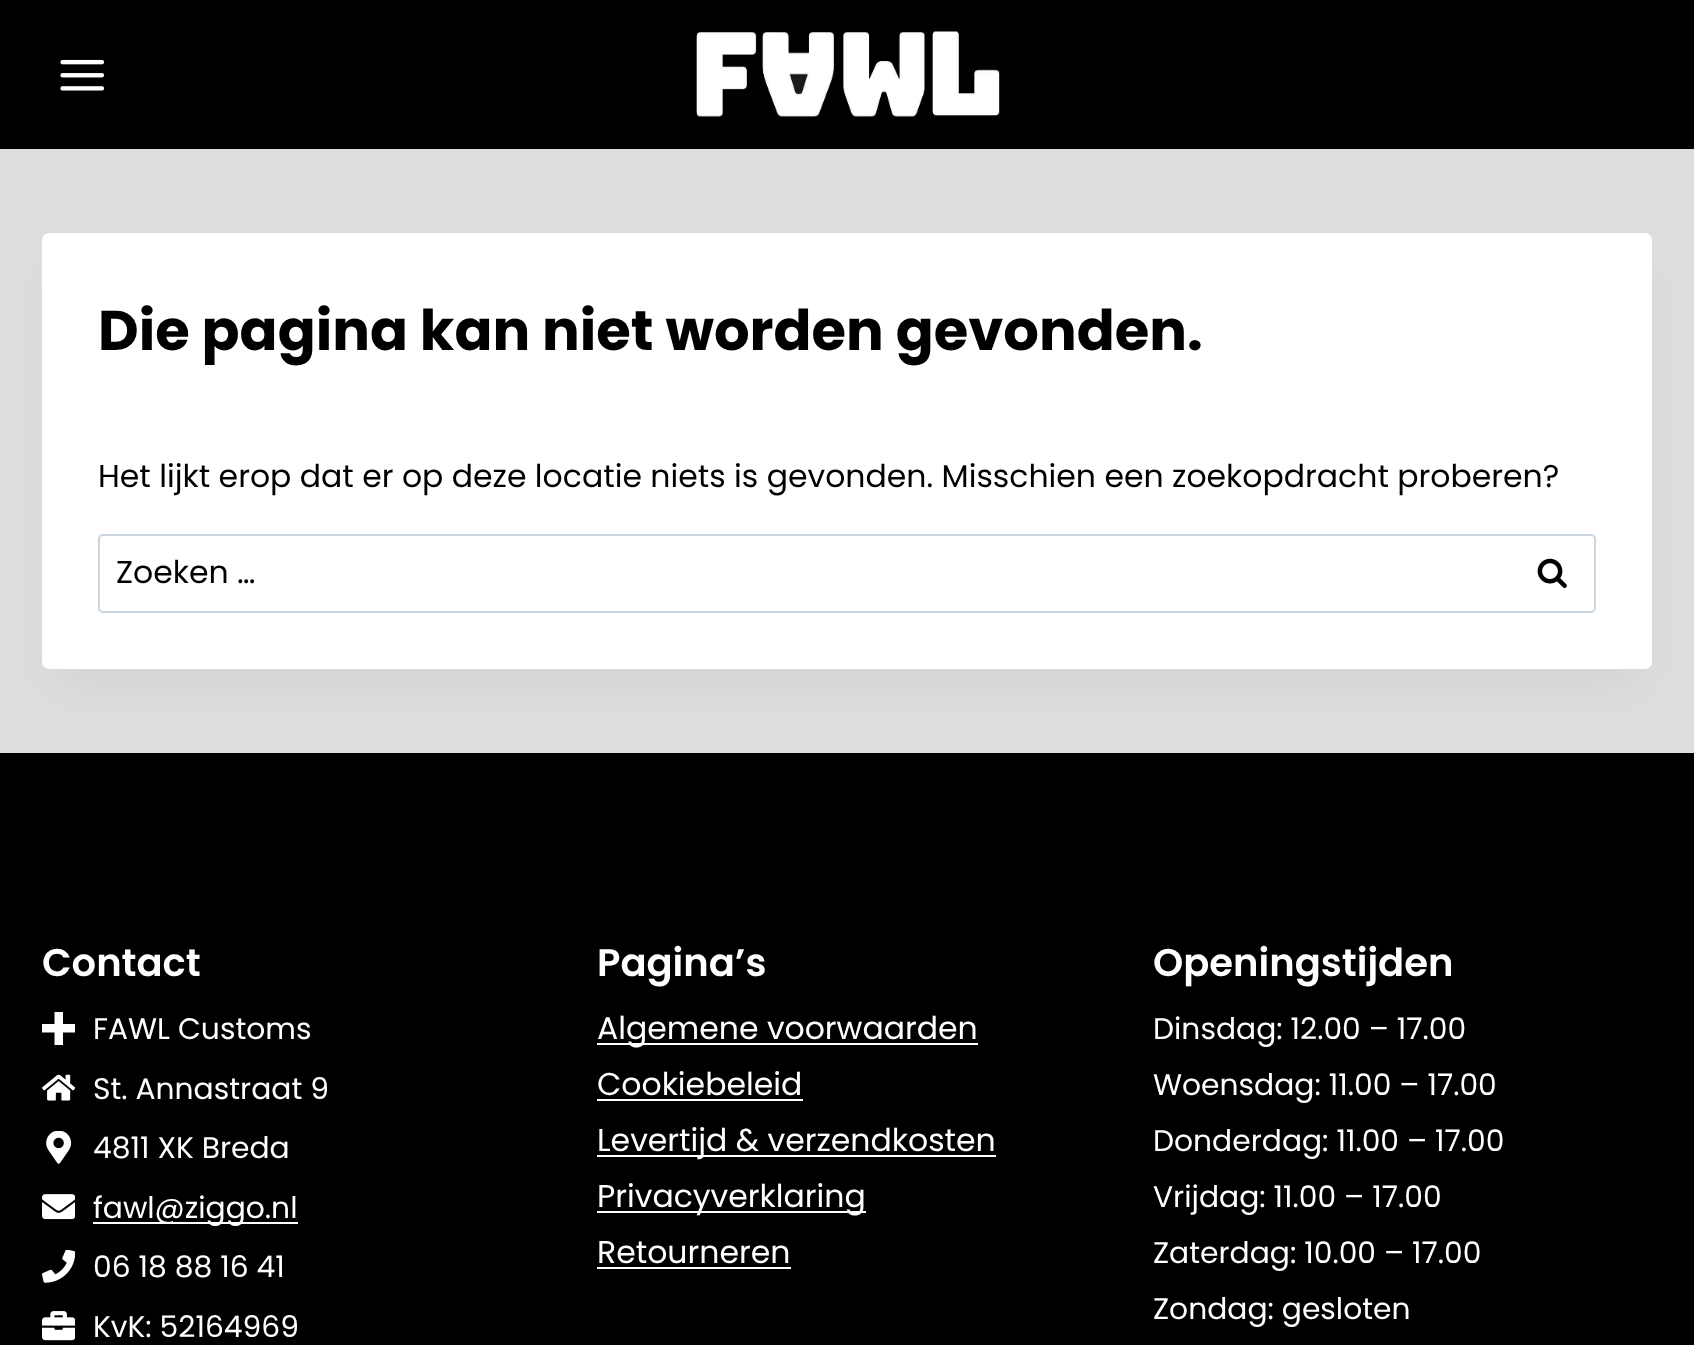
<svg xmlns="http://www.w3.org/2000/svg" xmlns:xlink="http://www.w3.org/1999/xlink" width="1694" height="1345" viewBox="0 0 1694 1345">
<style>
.cls-1{font:bold 56px Poppins;fill:#000000}
.cls-2{font:31.5px Poppins;fill:#000000}
.cls-3{font:600 38.5px Poppins;fill:#ffffff}
.cls-4{font:29.75px Poppins;fill:#ffffff}
.cls-5{font:31.5px Poppins;fill:#ffffff}
</style>
<defs>
<clipPath id="clip1"><rect x="42" y="1012" width="33" height="33"/></clipPath>
</defs>
<rect width="100%" height="100%" fill="#dddddd"/>
<rect fill="#000000" x="0" y="0" width="1694" height="149"/>
<image xlink:href="image0.png" x="60" y="59" width="45" height="32"/>
<image xlink:href="image1.png" x="696" y="31" width="304" height="86"/>
<rect fill="#000000" fill-opacity="0.05" filter="blur(22px)" x="60" y="277" width="1575" height="400"/>
<rect fill="#ffffff" x="42" y="233" width="1610" height="436" rx="7"/>
<rect fill="none" stroke="#cbd5e0" stroke-width="2" x="99" y="535" width="1496" height="77" rx="4"/>
<image xlink:href="image2.png" x="1537" y="558" width="30" height="30"/>
<rect fill="#000000" x="0" y="753" width="1694" height="592"/>
<g clip-path="url(#clip1)">
<path fill="#ffffff" d="M54.5 1011.5V1024H42V1032.5H54.5V1045H63V1032.5H75V1024H63V1011.5Z"/>
</g>
<image xlink:href="image3.png" x="42" y="1074" width="33" height="27"/>
<image xlink:href="image4.png" x="46" y="1131" width="26" height="33"/>
<image xlink:href="image5.png" x="42" y="1194" width="33" height="26"/>
<rect fill="#ffffff" x="93" y="1222" width="205" height="2"/>
<image xlink:href="image6.png" x="42" y="1250" width="33" height="33"/>
<image xlink:href="image7.png" x="42" y="1311" width="33" height="30"/>
<rect fill="#ffffff" x="597" y="1043" width="381" height="2"/>
<rect fill="#ffffff" x="597" y="1099" width="206" height="2"/>
<rect fill="#ffffff" x="597" y="1155" width="399" height="2"/>
<rect fill="#ffffff" x="597" y="1211" width="269" height="2"/>
<rect fill="#ffffff" x="597" y="1267" width="194" height="2"/>
<text class="cls-1" x="98" y="350">Die pagina kan niet worden gevonden.</text>
<text class="cls-2" x="98" y="487">Het lijkt erop dat er op deze locatie niets is gevonden. Misschien een zoekopdracht proberen?</text>
<text class="cls-2" x="116" y="583">Zoeken …</text>
<text class="cls-3" x="42" y="976">Contact</text>
<text class="cls-4" x="93" y="1039">FAWL Customs</text>
<text class="cls-4"><tspan x="93" y="1099">St. Annastraat 9</tspan><tspan x="93" y="1158">4811 XK Breda</tspan></text>
<text class="cls-4"><tspan x="93" y="1218">fawl@ziggo.nl</tspan><tspan x="93" y="1277">06 18 88 16 41</tspan></text>
<text class="cls-4" x="93" y="1337">KvK: 52164969</text>
<text class="cls-3" x="597" y="976">Pagina’s</text>
<text class="cls-5"><tspan x="597" y="1039">Algemene voorwaarden</tspan><tspan x="597" y="1095">Cookiebeleid</tspan><tspan x="597" y="1151">Levertijd &amp; verzendkosten</tspan><tspan x="597" y="1207">Privacyverklaring</tspan><tspan x="597" y="1263">Retourneren</tspan></text>
<text class="cls-3" x="1153" y="976">Openingstijden</text>
<text class="cls-4"><tspan x="1153" y="1039">Dinsdag: 12.00 – 17.00</tspan><tspan x="1153" y="1095">Woensdag: 11.00 – 17.00</tspan><tspan x="1153" y="1151">Donderdag: 11.00 – 17.00</tspan><tspan x="1153" y="1207">Vrijdag: 11.00 – 17.00</tspan><tspan x="1153" y="1263">Zaterdag: 10.00 – 17.00</tspan><tspan x="1153" y="1319">Zondag: gesloten</tspan></text>
</svg>
